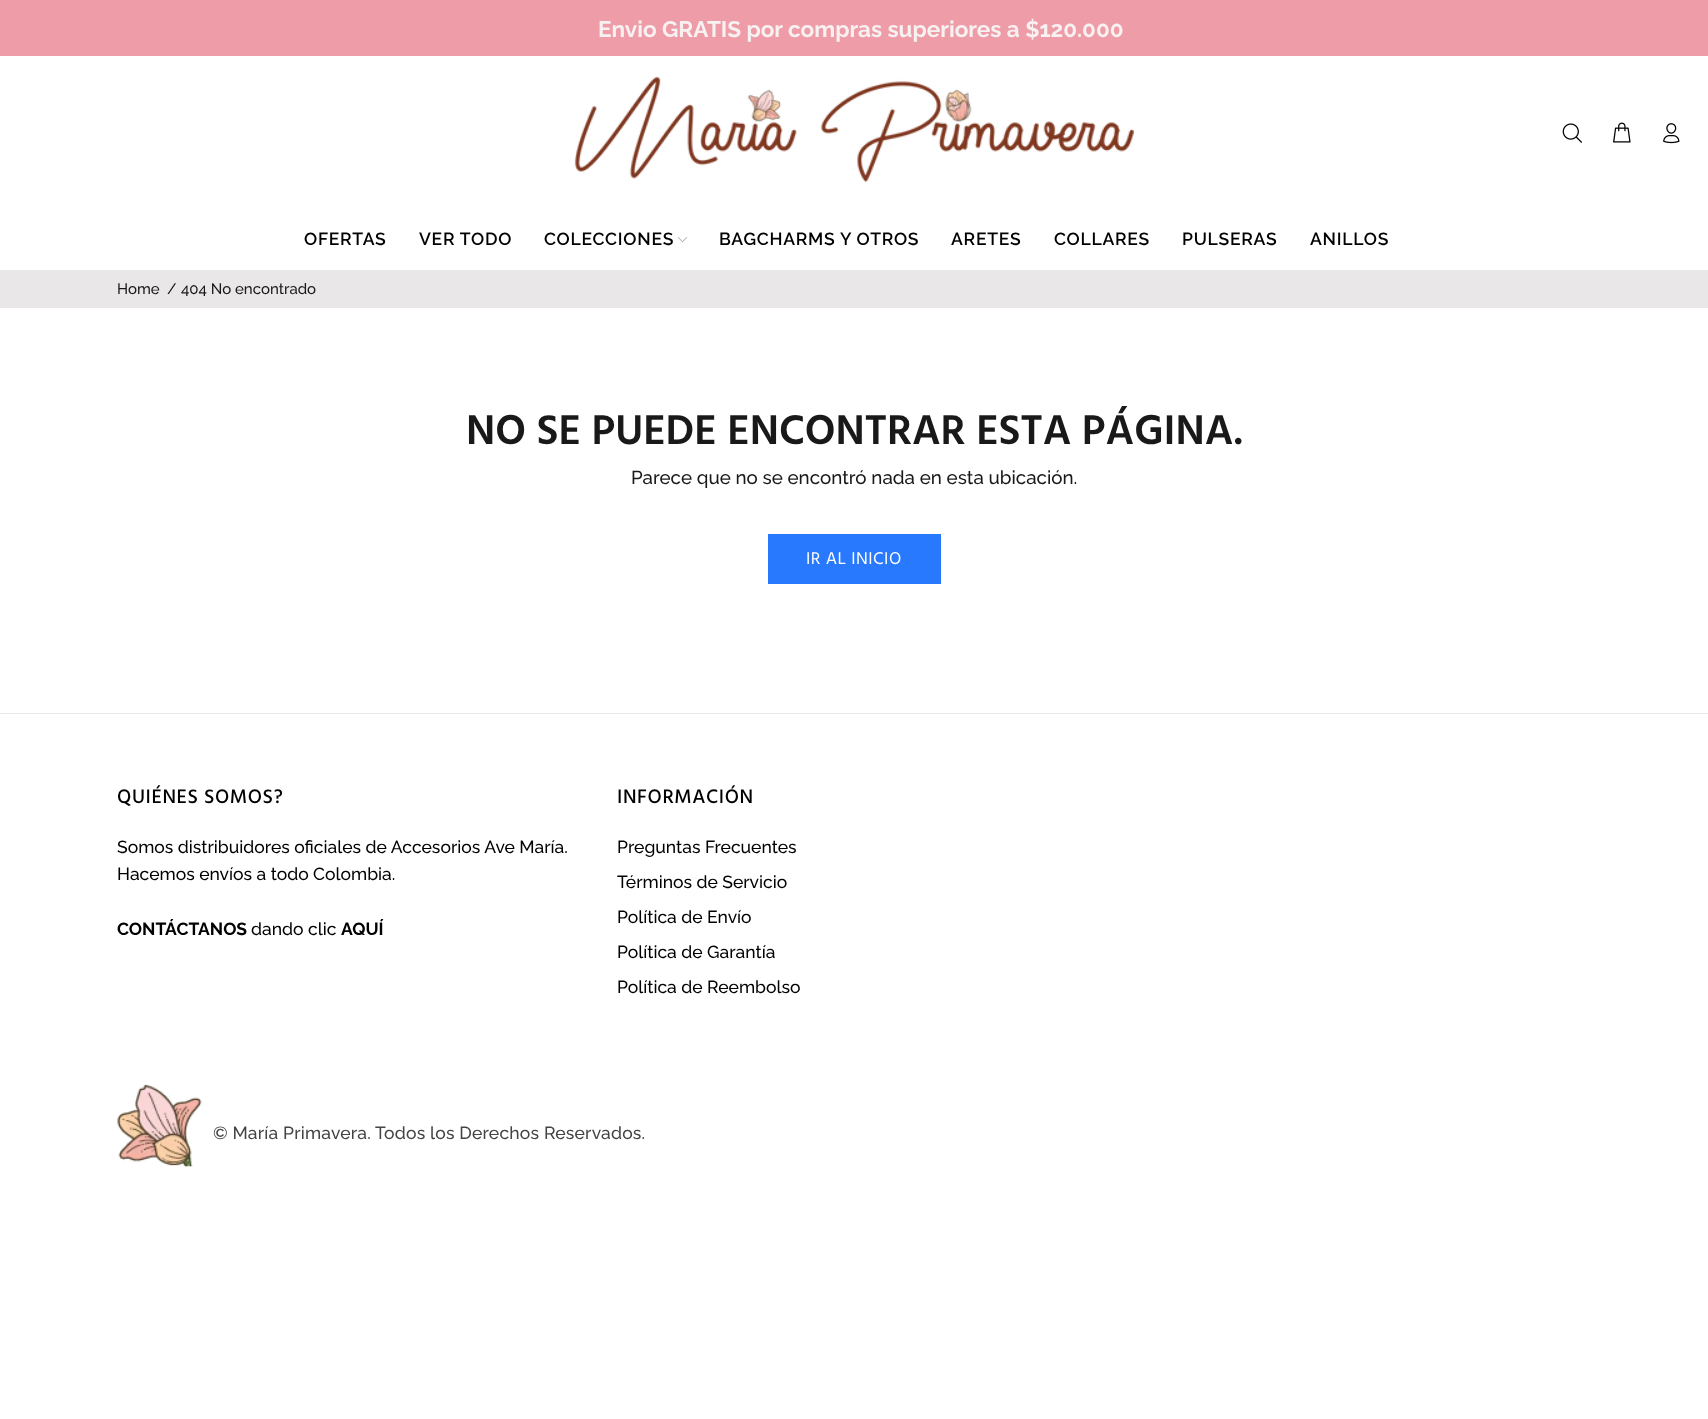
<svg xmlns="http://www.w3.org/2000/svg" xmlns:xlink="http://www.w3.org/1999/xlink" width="1708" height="1419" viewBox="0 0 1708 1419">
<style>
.cls-1{font:bold 22.5px Raleway;fill:#f7f1f1}
.cls-2{font:600 17.5px Raleway;letter-spacing:0.75px;fill:#000000}
.cls-3{font:500 15px Raleway;fill:#191919}
.cls-4{font:600 42.5px Hind;fill:#191919}
.cls-5{font:500 18.75px Raleway;fill:#191919}
.cls-6{font:17.5px Hind;letter-spacing:0.5px;fill:#ffffff}
.cls-7{font:500 20px Hind;letter-spacing:0.6px;fill:#000000}
.cls-8{font:500 17.5px Raleway;fill:#000000}
.cls-9{font:bold 17.5px Raleway;fill:#000000}
.cls-10{font:500 17.5px Raleway;letter-spacing:0.2px;fill:#444444}
</style>
<rect width="100%" height="100%" fill="#ffffff"/>
<rect fill="#ee9ca7" x="0" y="0" width="1708" height="56"/>
<image xlink:href="image0.png" x="574" y="76" width="561" height="107"/>
<image xlink:href="image1.png" x="1562" y="123" width="20" height="20"/>
<image xlink:href="image2.png" x="1613" y="122" width="18" height="21"/>
<image xlink:href="image3.png" x="1663" y="123" width="17" height="21"/>
<image xlink:href="image4.png" x="677" y="237" width="11" height="5"/>
<rect fill="#e9e7e7" x="0" y="270" width="1708" height="38"/>
<rect fill="#2879fe" x="768" y="534" width="173" height="50"/>
<rect fill="#e9e7e7" x="0" y="713" width="1708" height="1"/>
<image xlink:href="image5.png" x="117" y="1084" width="85" height="83"/>
<text class="cls-1" x="598" y="37">Envio GRATIS por compras superiores a $120.000</text>
<text class="cls-2" x="304" y="245">OFERTAS</text>
<text class="cls-2" x="419" y="245">VER TODO</text>
<text class="cls-2" x="544" y="245">COLECCIONES</text>
<text class="cls-2" x="719" y="245">BAGCHARMS Y OTROS</text>
<text class="cls-2" x="951" y="245">ARETES</text>
<text class="cls-2" x="1054" y="245">COLLARES</text>
<text class="cls-2" x="1182" y="245">PULSERAS</text>
<text class="cls-2" x="1310" y="245">ANILLOS</text>
<text class="cls-3" x="117" y="294">Home</text>
<text class="cls-3" x="167" y="294">/</text>
<text class="cls-3" x="181" y="294">404 No encontrado</text>
<text class="cls-4" x="466" y="444">NO SE PUEDE ENCONTRAR ESTA PÁGINA.</text>
<text class="cls-5" x="631" y="484">Parece que no se encontró nada en esta ubicación.</text>
<text class="cls-6" x="806" y="564">IR AL INICIO</text>
<text class="cls-7" x="117" y="803">QUIÉNES SOMOS?</text>
<text class="cls-8"><tspan x="117" y="853">Somos distribuidores oficiales de Accesorios Ave María.</tspan><tspan x="117" y="880">Hacemos envíos a todo Colombia.</tspan></text>
<text class="cls-9" x="117" y="935">CONTÁCTANOS</text>
<text class="cls-8" x="251" y="935">dando clic</text>
<text class="cls-9" x="341" y="935">AQUÍ</text>
<text class="cls-7" x="617" y="803">INFORMACIÓN</text>
<text class="cls-8" x="617" y="853">Preguntas Frecuentes</text>
<text class="cls-8" x="617" y="888">Términos de Servicio</text>
<text class="cls-8" x="617" y="923">Política de Envío</text>
<text class="cls-8" x="617" y="958">Política de Garantía</text>
<text class="cls-8" x="617" y="993">Política de Reembolso</text>
<text class="cls-10" x="213" y="1139">© María Primavera. Todos los Derechos Reservados.</text>
</svg>
